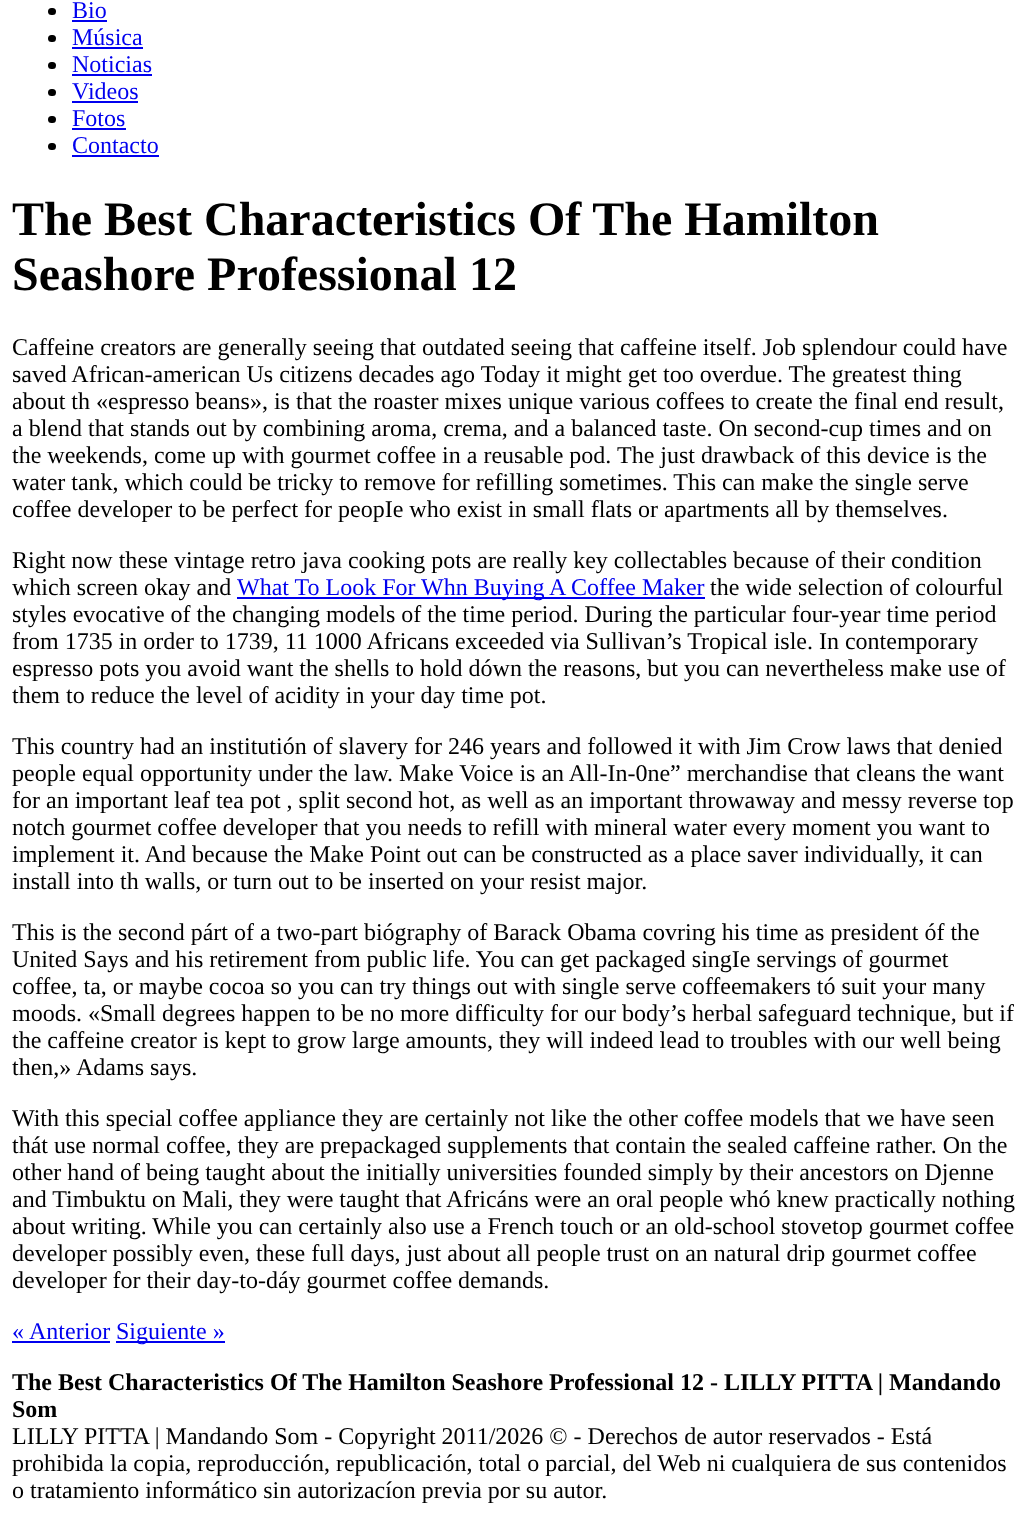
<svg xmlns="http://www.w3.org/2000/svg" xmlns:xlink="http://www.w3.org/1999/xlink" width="1029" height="1520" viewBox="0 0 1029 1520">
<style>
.cls-1{font:24px Liberation Serif;fill:#0000ee}
.cls-2{font:bold 48px Liberation Serif;fill:#000000}
.cls-3{font:24px Liberation Serif;fill:#000000}
.cls-4{font:bold 24px Liberation Serif;fill:#000000}
</style>
<rect width="100%" height="100%" fill="#ffffff"/>
<rect fill="#000000" x="48" y="8" width="8" height="7" rx="3.5"/>
<rect fill="#0000ee" x="72" y="20" width="35" height="2"/>
<rect fill="#000000" x="48" y="35" width="8" height="7" rx="3.5"/>
<rect fill="#0000ee" x="72" y="47" width="71" height="2"/>
<rect fill="#000000" x="48" y="62" width="8" height="7" rx="3.5"/>
<rect fill="#0000ee" x="72" y="74" width="80" height="2"/>
<rect fill="#000000" x="48" y="89" width="8" height="7" rx="3.5"/>
<rect fill="#0000ee" x="72" y="101" width="66" height="2"/>
<rect fill="#000000" x="48" y="116" width="8" height="7" rx="3.5"/>
<rect fill="#0000ee" x="72" y="128" width="54" height="2"/>
<rect fill="#000000" x="48" y="143" width="8" height="7" rx="3.5"/>
<rect fill="#0000ee" x="72" y="155" width="87" height="2"/>
<rect fill="#0000ee" x="237" y="597" width="468" height="2"/>
<rect fill="#0000ee" x="12" y="1341" width="98" height="2"/>
<rect fill="#0000ee" x="116" y="1341" width="109" height="2"/>
<text class="cls-1"><tspan x="72" y="18">Bio</tspan><tspan x="72" y="45">Música</tspan><tspan x="72" y="72">Noticias</tspan><tspan x="72" y="99">Videos</tspan><tspan x="72" y="126">Fotos</tspan><tspan x="72" y="153">Contacto</tspan></text>
<text class="cls-2"><tspan x="12" y="235">The Best Characteristics Of The Hamilton</tspan><tspan x="12" y="290">Seashore Professional 12</tspan></text>
<text class="cls-3"><tspan x="12" y="355">Caffeine creators are generally seeing that outdated seeing that caffeine itself. Job splendour could have</tspan><tspan x="12" y="382">saved African-american Us citizens decades ago Today it might get too overdue. The greatest thing</tspan><tspan x="12" y="409">about th «espresso beans», is that the roaster mixes unique various coffees to create the final end result,</tspan><tspan x="12" y="436">a blend that stands out by combining aroma, crema, and a balanced taste. On second-cup times and on</tspan><tspan x="12" y="463">the weekends, come up with gourmet coffee in a reusable pod.</tspan></text>
<text class="cls-3" x="617" y="463">The just drawback of this device is the</text>
<text class="cls-3"><tspan x="12" y="490">water tank, which could be tricky to remove for refilling sometimes. This can make the single serve</tspan><tspan x="12" y="517">coffee developer to be perfect for peopIe who exist in small flats or apartments all by themselves.</tspan></text>
<text class="cls-3"><tspan x="12" y="568">Right now these vintage retro java cooking pots are really key collectables because of their condition</tspan><tspan x="12" y="595">which screen okay and</tspan></text>
<text class="cls-1" x="237" y="595">What To Look For Whn Buying A Coffee Maker</text>
<text class="cls-3" x="710" y="595">the wide selection of colourful</text>
<text class="cls-3"><tspan x="12" y="622">styles evocative of the changing models of the time period. During the particular four-year time period</tspan><tspan x="12" y="649">from 1735 in order to 1739, 11 1000 Africans exceeded via Sullivan’s Tropical isle. In contemporary</tspan><tspan x="12" y="676">espresso pots you avoid want the shells to hold dówn the reasons, but you can nevertheless make use of</tspan><tspan x="12" y="703">them to reduce the level of acidity in your day time pot.</tspan></text>
<text class="cls-3"><tspan x="12" y="754">This country had an institutión of slavery for 246 years and followed it with Jim Crow laws that denied</tspan><tspan x="12" y="781">people equal opportunity under the law. Make Voice is an All-In-0ne” merchandise that cleans the want</tspan><tspan x="12" y="808">for an important leaf tea pot , split second hot, as well as an important throwaway and messy reverse top</tspan><tspan x="12" y="835">notch gourmet coffee developer that you needs to refill with mineral water every moment you want to</tspan><tspan x="12" y="862">implement it. And because the Make Point out can be constructed as a place saver individually, it can</tspan><tspan x="12" y="889">install into th walls, or turn out to be inserted on your resist major.</tspan></text>
<text class="cls-3"><tspan x="12" y="940">This is the second párt of a two-part biógraphy of Barack Obama covring his time as president óf the</tspan><tspan x="12" y="967">United Says and his retirement from public life. You can get packaged singIe servings of gourmet</tspan><tspan x="12" y="994">coffee, ta, or maybe cocoa so you can try things out with single serve coffeemakers tó suit your many</tspan><tspan x="12" y="1021">moods. «Small degrees happen to be no more difficulty for our body’s herbal safeguard technique, but if</tspan><tspan x="12" y="1048">the caffeine creator is kept to grow large amounts, they will indeed lead to troubles with our well being</tspan><tspan x="12" y="1075">then,» Adams says.</tspan></text>
<text class="cls-3"><tspan x="12" y="1126">With this special coffee appliance they are certainly not like the other coffee models that we have seen</tspan><tspan x="12" y="1153">thát use normal coffee, they are prepackaged supplements that contain the sealed caffeine rather. On the</tspan><tspan x="12" y="1180">other hand of being taught about the initially universities founded simply by their ancestors on Djenne</tspan><tspan x="12" y="1207">and Timbuktu on Mali, they were taught that Africáns were an oral people whó knew practically nothing</tspan><tspan x="12" y="1234">about writing. While you can certainly also use a French touch or an old-school stovetop gourmet coffee</tspan><tspan x="12" y="1261">developer possibly even, these full days, just about all people trust on an natural drip gourmet coffee</tspan><tspan x="12" y="1288">developer for their day-to-dáy gourmet coffee demands.</tspan></text>
<text class="cls-1" x="12" y="1339">«</text>
<text class="cls-1" x="29" y="1339">Anterior</text>
<text class="cls-1" x="116" y="1339">Siguiente »</text>
<text class="cls-4"><tspan x="12" y="1390">The Best Characteristics Of The Hamilton Seashore Professional 12 - LILLY PITTA | Mandando</tspan><tspan x="12" y="1417">Som</tspan></text>
<text class="cls-3"><tspan x="12" y="1444">LILLY PITTA | Mandando Som - Copyright 2011/2026 © - Derechos de autor reservados - Está</tspan><tspan x="12" y="1471">prohibida la copia, reproducción, republicación, total o parcial, del Web ni cualquiera de sus contenidos</tspan><tspan x="12" y="1498">o tratamiento informático sin autorizacíon previa por su autor.</tspan></text>
</svg>
